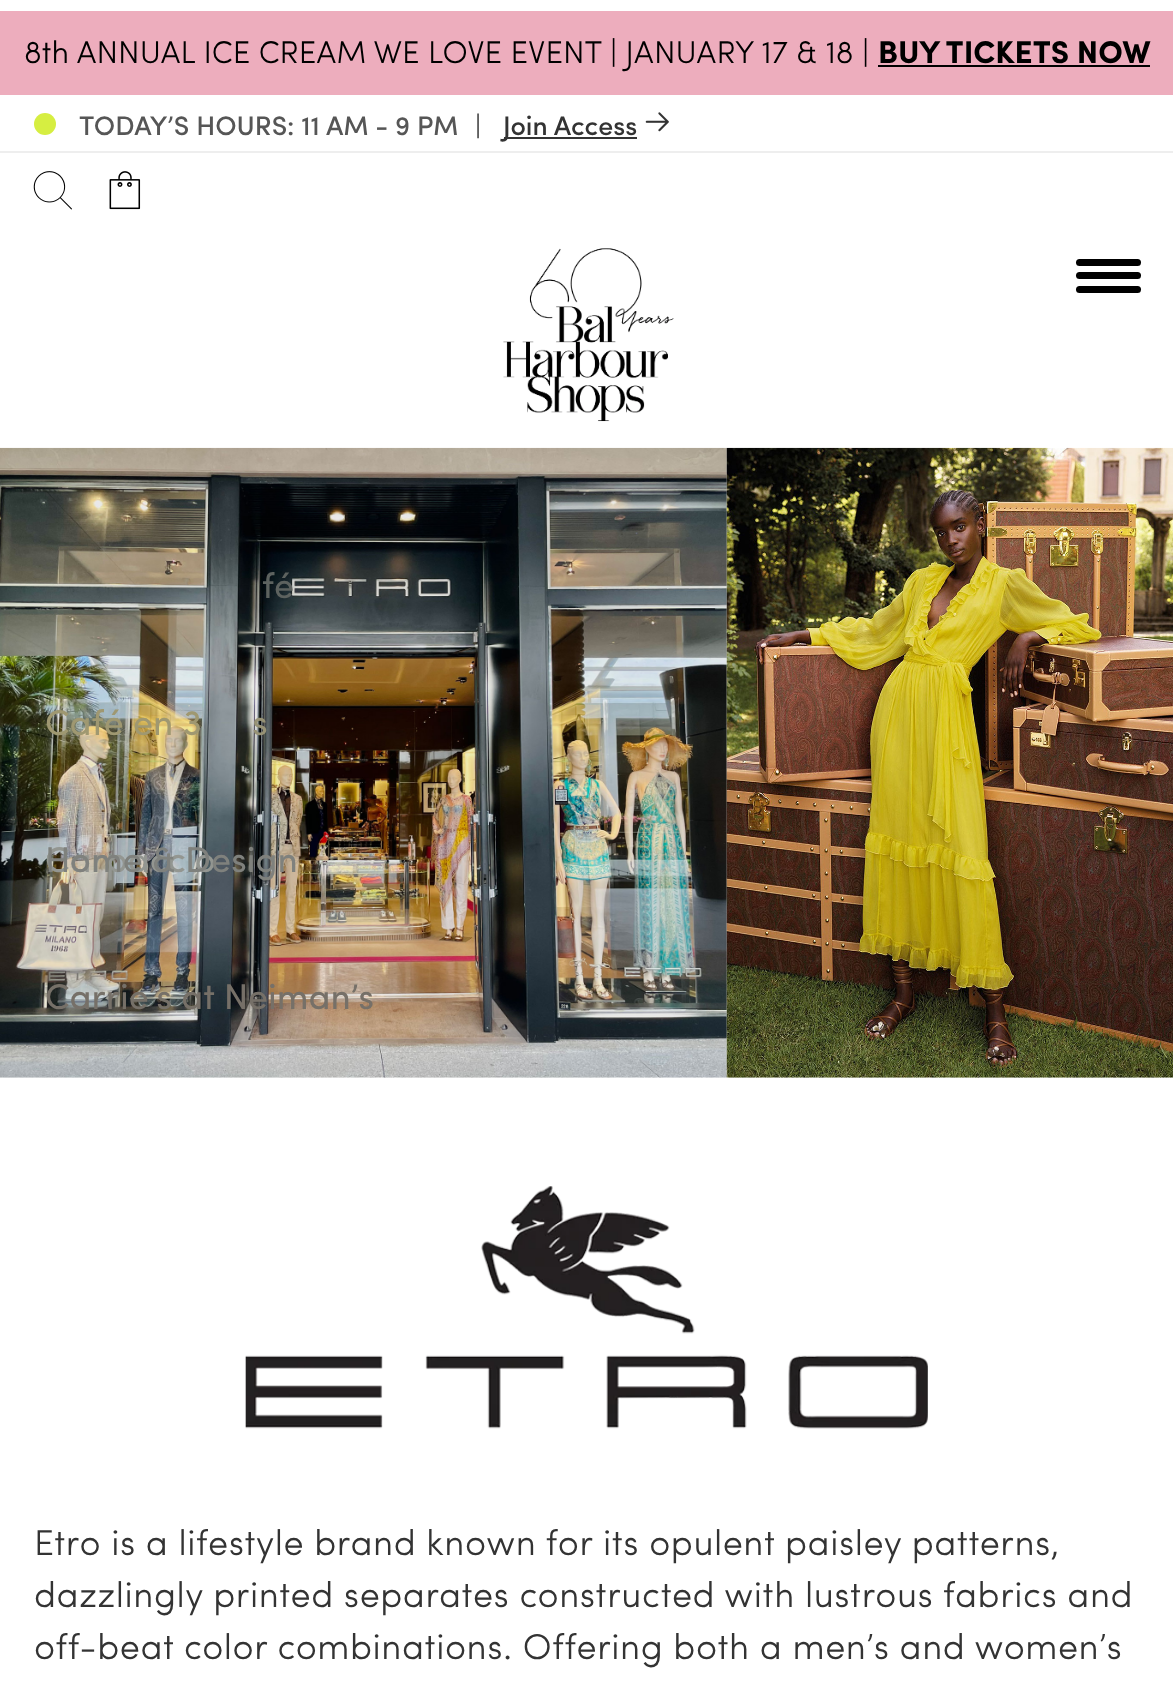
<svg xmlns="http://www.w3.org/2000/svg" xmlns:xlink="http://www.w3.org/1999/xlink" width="1173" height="1681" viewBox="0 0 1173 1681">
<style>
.cls-1{font:300 31.5px Sofia;fill:#000000}
.cls-2{font:bold 31.5px Sofia;fill:#000000}
.cls-3{font:500 27px Sofia;fill:#565656}
.cls-4{font:500 27px Sofia;fill:#333333}
.cls-5{font:36px Sofia;fill:#5d625f}
.cls-6{font:36px Sofia;fill:#9f9871}
.cls-7{font:36px Sofia;fill:#939691}
.cls-8{font:36px Sofia;fill:#767068}
.cls-9{font:36px Sofia;fill:#7f817d}
.cls-10{font:36px Sofia;fill:#979275}
.cls-11{font:300 36px Sofia;letter-spacing:0.55px;fill:#333333}
</style>
<rect width="100%" height="100%" fill="#ffffff"/>
<rect fill="#eeeeee" x="0" y="151" width="1173" height="2"/>
<rect fill="#edadbd" x="0" y="11" width="1173" height="84"/>
<rect fill="#000000" x="878" y="65" width="272" height="2"/>
<circle fill="#d6ee41" cx="45" cy="124" r="11"/>
<image xlink:href="image0.png" x="645" y="112" width="24" height="20"/>
<rect fill="#333333" x="504" y="137" width="133" height="2"/>
<image xlink:href="image1.png" x="33" y="171" width="39" height="39"/>
<image xlink:href="image2.png" x="109" y="171" width="32" height="39"/>
<image xlink:href="image3.png" x="503" y="248" width="171" height="174"/>
<rect fill="#000000" x="1076" y="259" width="65" height="7" rx="3.5"/>
<rect fill="#000000" x="1076" y="272" width="65" height="7" rx="3.5"/>
<rect fill="#000000" x="1076" y="286" width="65" height="7" rx="3.5"/>
<image xlink:href="image4.png" x="0" y="447" width="727" height="631"/>
<image xlink:href="image5.png" x="726" y="447" width="447" height="631"/>
<image xlink:href="image6.png" x="245" y="1186" width="683" height="243"/>
<text class="cls-1" x="24" y="63">8th ANNUAL ICE CREAM WE LOVE EVENT | JANUARY 17 &amp; 18 |</text>
<text class="cls-2" x="878" y="63">BUY TICKETS NOW</text>
<text class="cls-3" x="79" y="135">TODAY’S HOURS: 11 AM - 9 PM</text>
<text class="cls-3" x="475" y="135">|</text>
<text class="cls-4" x="503" y="135">Join Access</text>
<text class="cls-5" x="262" y="598">fé</text>
<text class="cls-6" x="45" y="735">Café en 3</text>
<text class="cls-7" x="45" y="872">Carpaccio</text>
<text class="cls-8" x="45" y="1009">Carrie’s at Neiman’s</text>
<text class="cls-9" x="45" y="872">Home &amp; Design</text>
<text class="cls-10" x="252" y="735">s</text>
<text class="cls-11"><tspan x="34" y="1555">Etro is a lifestyle brand known for its opulent paisley patterns,</tspan><tspan x="34" y="1607">dazzlingly printed separates constructed with lustrous fabrics and</tspan><tspan x="34" y="1659">off-beat color combinations. Offering both a men’s and women’s</tspan></text>
</svg>
